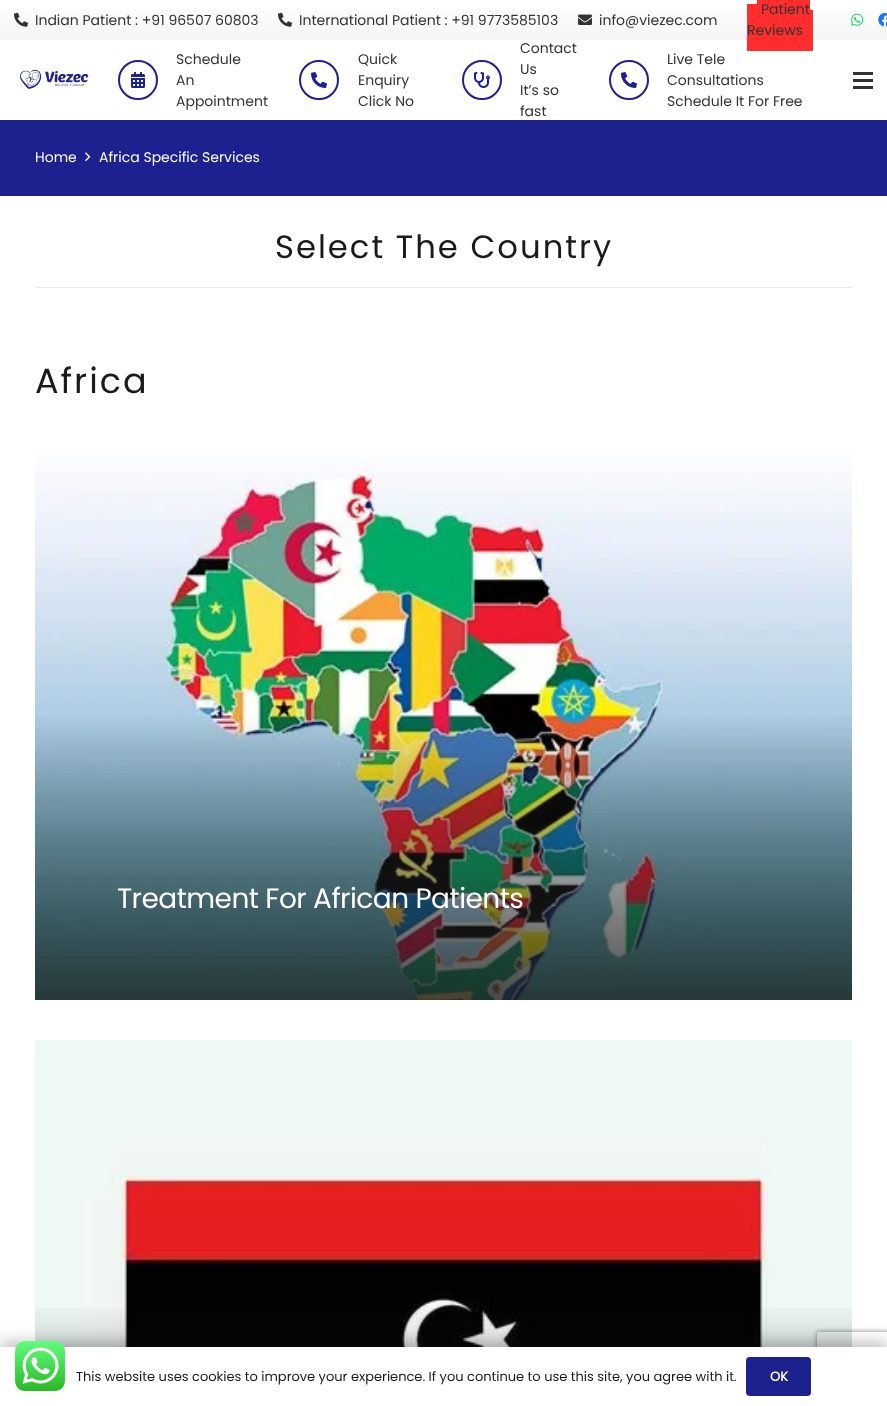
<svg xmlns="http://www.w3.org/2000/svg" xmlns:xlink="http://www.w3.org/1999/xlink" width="887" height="1406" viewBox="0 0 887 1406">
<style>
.cls-1{font:14px Poppins;fill:#333333}
.cls-2{font:14px Poppins;fill:#ffffff}
.cls-3{font:32.25px Poppins;letter-spacing:2px;fill:#1a1a1a}
.cls-4{font:35px Poppins;letter-spacing:2px;fill:#1a1a1a}
.cls-5{font:28px Poppins;letter-spacing:-0.55px;fill:#ffffff}
.cls-6{font:13px Poppins;fill:#1a1a1a}
.cls-7{font:bold 13px Poppins;fill:#ffffff}
</style>
<defs>
<linearGradient id="g1" gradientUnits="userSpaceOnUse" x1="444" y1="40" x2="444" y2="0"><stop offset="0" stop-color="#f5f5f5"/><stop offset="1" stop-color="#ffffff"/></linearGradient>
<clipPath id="clip1"><path d="M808 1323H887V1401H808ZM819 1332H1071C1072 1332 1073 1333 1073 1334V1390C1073 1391 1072 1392 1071 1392H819C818 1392 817 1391 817 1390V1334C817 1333 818 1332 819 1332Z" clip-rule="evenodd"/></clipPath>
<linearGradient id="g2" gradientUnits="userSpaceOnUse" x1="444" y1="1300" x2="444" y2="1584"><stop offset="0" stop-color="#1e1e1e" stop-opacity="0"/><stop offset="1" stop-color="#1e1e1e" stop-opacity="0.8"/></linearGradient>
</defs>
<rect width="100%" height="100%" fill="#ffffff"/>
<rect fill="url(#g1)" x="0" y="10" width="887" height="30"/>
<image xlink:href="image0.png" x="14" y="12" width="14" height="15"/>
<image xlink:href="image0.png" x="278" y="12" width="14" height="15"/>
<image xlink:href="image1.png" x="578" y="14" width="14" height="11"/>
<rect fill="#ff2d2d" x="747" y="4" width="10" height="6"/>
<rect fill="#ff2d2d" x="757" y="0" width="53" height="10"/>
<rect fill="#ff2d2d" x="747" y="10" width="66" height="41"/>
<image xlink:href="image2.png" x="851" y="13" width="13" height="13"/>
<image xlink:href="image3.png" x="878" y="13" width="9" height="14"/>
<rect fill="#1b1e84" x="0" y="120" width="887" height="1"/>
<image xlink:href="image4.png" x="19" y="69" width="70" height="20"/>
<circle fill="none" stroke="#1d218f" stroke-width="2" cx="138" cy="80" r="19"/>
<image xlink:href="image5.png" x="131" y="72" width="14" height="16"/>
<circle fill="none" stroke="#1d218f" stroke-width="2" cx="319" cy="80" r="19"/>
<image xlink:href="image6.png" x="311" y="72" width="16" height="16"/>
<circle fill="none" stroke="#1d218f" stroke-width="2" cx="482" cy="80" r="19"/>
<image xlink:href="image7.png" x="474" y="72" width="16" height="16"/>
<circle fill="none" stroke="#1d218f" stroke-width="2" cx="629" cy="80" r="19"/>
<image xlink:href="image6.png" x="621" y="72" width="16" height="16"/>
<rect fill="#333333" x="853" y="79" width="20" height="3"/>
<rect fill="#333333" x="853" y="72" width="20" height="3"/>
<rect fill="#333333" x="853" y="86" width="20" height="3"/>
<rect fill="#1d218f" x="0" y="121" width="887" height="75"/>
<image xlink:href="image8.png" x="85" y="152" width="6" height="10"/>
<rect fill="#e8e8e8" x="35" y="287" width="817" height="1"/>
<image xlink:href="image9.png" x="35" y="455" width="817" height="545"/>
<image xlink:href="image10.png" x="35" y="1040" width="817" height="307"/>
<g clip-path="url(#clip1)">
<rect fill="#808080" filter="blur(2.5px)" x="817" y="1332" width="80" height="60" rx="2"/>
</g>
<rect fill="url(#g2)" x="35" y="1308" width="817" height="39"/>
<rect fill="#000000" fill-opacity="0.25" filter="blur(7.5px)" x="0" y="1342" width="887" height="59"/>
<rect fill="#ffffff" x="0" y="1347" width="887" height="59"/>
<image xlink:href="image11.png" x="15" y="1341" width="50" height="50"/>
<rect fill="#1d218f" x="746" y="1357" width="65" height="39" rx="4"/>
<text class="cls-1" x="35" y="25">Indian Patient : +91 96507 60803</text>
<text class="cls-1" x="299" y="25">International Patient : +91 9773585103</text>
<text class="cls-1" x="599" y="25">info@viezec.com</text>
<text class="cls-1" x="761" y="14">Patient</text>
<text class="cls-1" x="747" y="35">Reviews</text>
<text class="cls-1"><tspan x="176" y="64">Schedule</tspan><tspan x="176" y="85">An</tspan><tspan x="176" y="106">Appointment</tspan></text>
<text class="cls-1"><tspan x="358" y="64">Quick</tspan><tspan x="358" y="85">Enquiry</tspan><tspan x="358" y="106">Click No</tspan></text>
<text class="cls-1"><tspan x="520" y="53">Contact</tspan><tspan x="520" y="74">Us</tspan><tspan x="520" y="95">It’s so</tspan><tspan x="520" y="116">fast</tspan></text>
<text class="cls-1"><tspan x="667" y="64">Live Tele</tspan><tspan x="667" y="85">Consultations</tspan><tspan x="667" y="106">Schedule It For Free</tspan></text>
<text class="cls-2" x="35" y="162">Home</text>
<text class="cls-2" x="99" y="162">Africa Specific Services</text>
<text class="cls-3" x="275" y="258">Select The Country</text>
<text class="cls-4" x="35" y="393">Africa</text>
<text class="cls-5" x="117" y="908">Treatment For African Patients</text>
<text class="cls-6" x="76" y="1381">This website uses cookies to improve your experience. If you continue to use this site, you agree with it.</text>
<text class="cls-7" x="770" y="1381">OK</text>
</svg>
